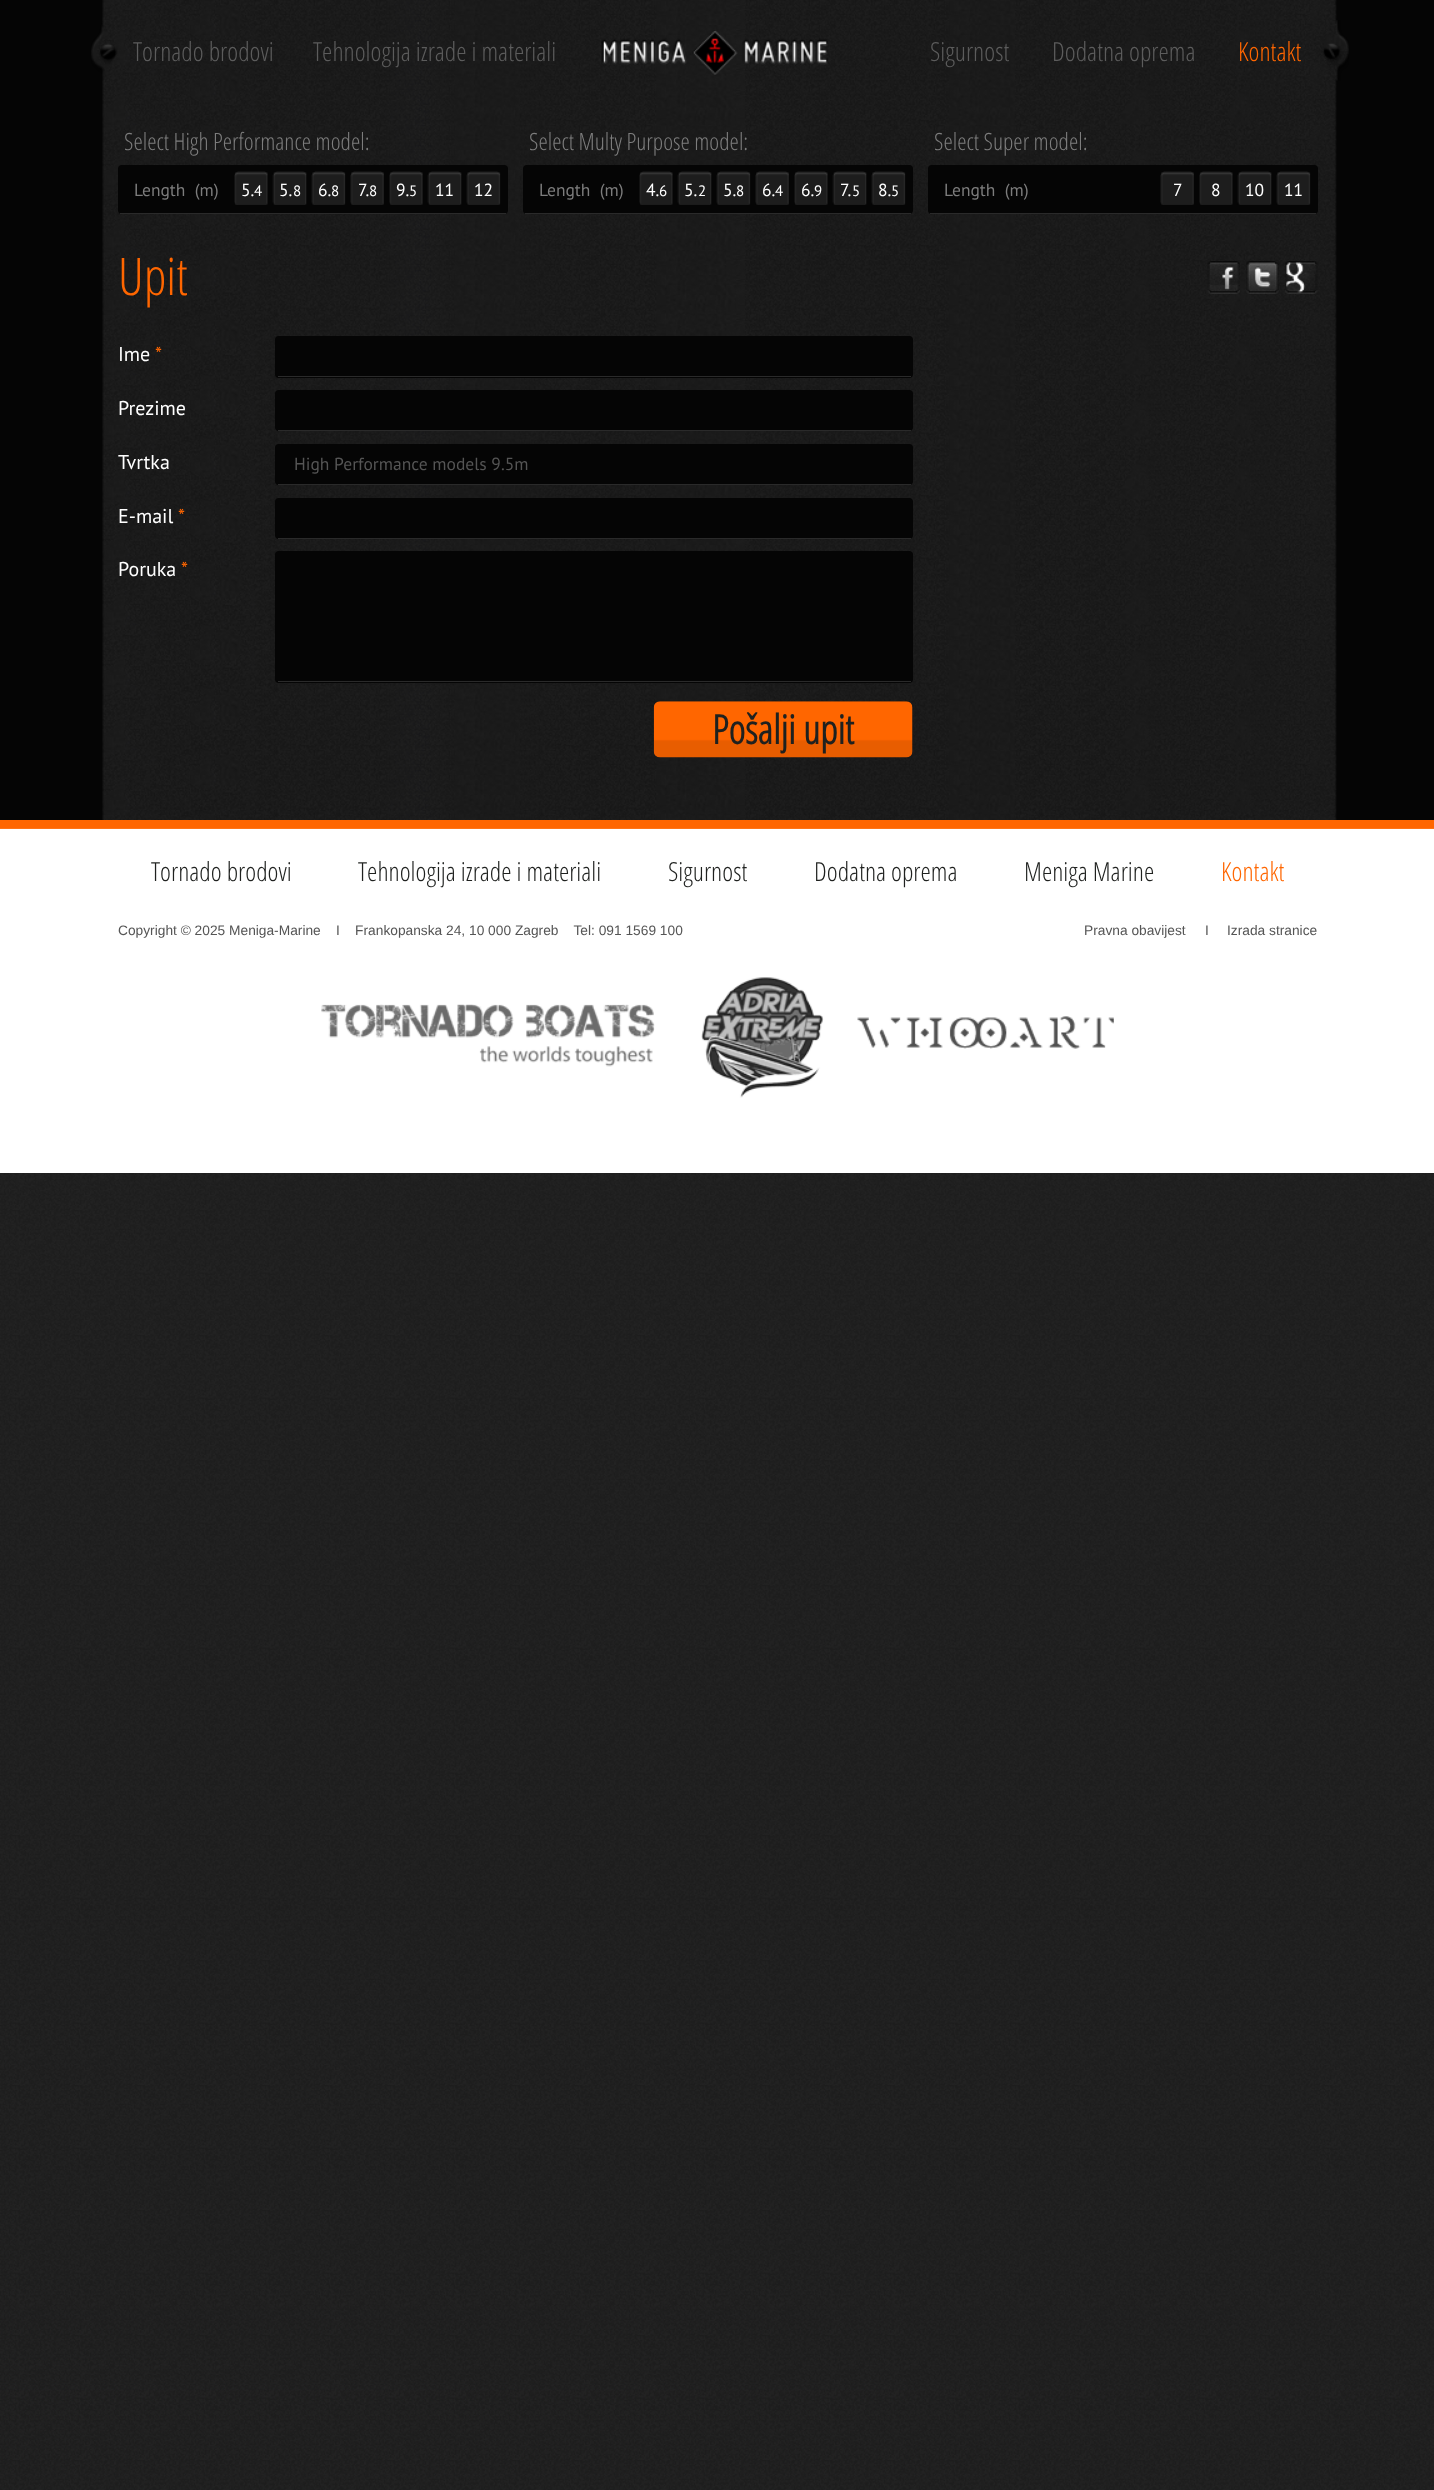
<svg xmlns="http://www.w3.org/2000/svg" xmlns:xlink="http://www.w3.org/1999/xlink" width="1434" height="2490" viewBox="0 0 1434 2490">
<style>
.cls-1{font:300 26.25px Open Sans Condensed;fill:#5c5c5c}
.cls-2{font:300 26.25px Open Sans Condensed;fill:#ff6600}
.cls-3{font:300 23.75px Open Sans Condensed;fill:#7d7d7d}
.cls-4{font:17.5px PT Sans;fill:#7d7d7d}
.cls-5{font:17.5px PT Sans;fill:#ffffff}
.cls-6{font:15px PT Sans;fill:#ffffff}
.cls-7{font:300 52px Open Sans Condensed;fill:#ff6600}
.cls-8{font:20px PT Sans;fill:#ffffff}
.cls-9{font:20px PT Sans;fill:#ff6600}
.cls-10{font:17.5px PT Sans;fill:#555555}
.cls-11{font:bold 40px Open Sans Condensed;fill:#1f211f}
.cls-12{font:300 26.25px Open Sans Condensed;fill:#1f211f}
.cls-13{font:13.75px Liberation Sans;fill:#555555}
</style>
<rect width="100%" height="100%" fill="#ffffff"/>
<image xlink:href="image0.png" x="0" y="1173" width="1434" height="1317"/>
<rect fill="#050505" x="0" y="0" width="1434" height="820"/>
<image xlink:href="image1.png" x="102" y="0" width="1235" height="820"/>
<image xlink:href="image2.png" x="91" y="20" width="1258" height="61"/>
<image xlink:href="image3.png" x="601" y="30" width="227" height="45"/>
<rect fill="#050505" x="118" y="165" width="390" height="49" rx="4"/>
<rect fill="#2a2a2a" x="120" y="213" width="386" height="1"/>
<image xlink:href="image4.png" x="234" y="171" width="34" height="34"/>
<image xlink:href="image5.png" x="272" y="171" width="35" height="34"/>
<image xlink:href="image6.png" x="311" y="171" width="35" height="34"/>
<image xlink:href="image7.png" x="350" y="171" width="34" height="34"/>
<image xlink:href="image8.png" x="389" y="171" width="34" height="34"/>
<image xlink:href="image5.png" x="427" y="171" width="35" height="34"/>
<image xlink:href="image6.png" x="466" y="171" width="35" height="34"/>
<rect fill="#050505" x="523" y="165" width="390" height="49" rx="4"/>
<rect fill="#2a2a2a" x="525" y="213" width="386" height="1"/>
<image xlink:href="image4.png" x="639" y="171" width="34" height="34"/>
<image xlink:href="image5.png" x="677" y="171" width="35" height="34"/>
<image xlink:href="image6.png" x="716" y="171" width="35" height="34"/>
<image xlink:href="image9.png" x="755" y="171" width="34" height="34"/>
<image xlink:href="image4.png" x="794" y="171" width="34" height="34"/>
<image xlink:href="image5.png" x="832" y="171" width="35" height="34"/>
<image xlink:href="image6.png" x="871" y="171" width="35" height="34"/>
<rect fill="#050505" x="928" y="165" width="390" height="49" rx="4"/>
<rect fill="#2a2a2a" x="930" y="213" width="386" height="1"/>
<image xlink:href="image10.png" x="1160" y="171" width="34" height="34"/>
<image xlink:href="image4.png" x="1199" y="171" width="34" height="34"/>
<image xlink:href="image5.png" x="1237" y="171" width="35" height="34"/>
<image xlink:href="image6.png" x="1276" y="171" width="35" height="34"/>
<image xlink:href="image11.png" x="1207" y="261" width="33" height="33"/>
<image xlink:href="image12.png" x="1246" y="261" width="33" height="33"/>
<image xlink:href="image13.png" x="1285" y="261" width="33" height="33"/>
<rect fill="#050505" x="275" y="336" width="638" height="42" rx="4"/>
<rect fill="#2a2a2a" x="278" y="376" width="633" height="1"/>
<rect fill="#050505" x="275" y="390" width="638" height="41" rx="4"/>
<rect fill="#2a2a2a" x="278" y="430" width="633" height="1"/>
<rect fill="#050505" x="275" y="444" width="638" height="41" rx="4"/>
<rect fill="#2a2a2a" x="278" y="484" width="633" height="1"/>
<rect fill="#050505" x="275" y="498" width="638" height="41" rx="4"/>
<rect fill="#2a2a2a" x="278" y="538" width="633" height="1"/>
<rect fill="#050505" x="275" y="551" width="638" height="132" rx="4"/>
<rect fill="#2a2a2a" x="278" y="681" width="633" height="1"/>
<image xlink:href="image14.png" x="653" y="701" width="260" height="57"/>
<rect fill="#ff6600" x="0" y="820" width="1434" height="8"/>
<rect fill="#ff7417" x="0" y="828" width="1434" height="1"/>
<image xlink:href="image15.png" x="321" y="1004" width="334" height="63"/>
<image xlink:href="image16.png" x="701" y="977" width="123" height="121"/>
<image xlink:href="image17.png" x="857" y="1016" width="257" height="33"/>
<text class="cls-1" x="133" y="61">Tornado brodovi</text>
<text class="cls-1" x="313" y="61">Tehnologija izrade i materiali</text>
<text class="cls-1" x="930" y="61">Sigurnost</text>
<text class="cls-1" x="1052" y="61">Dodatna oprema</text>
<text class="cls-2" x="1238" y="61">Kontakt</text>
<text class="cls-3" x="124" y="150">Select High Performance model:</text>
<text class="cls-4" xml:space="preserve" x="134" y="196">Length  (m)</text>
<text class="cls-5" x="241" y="196">5.</text>
<text class="cls-6" x="254" y="196">4</text>
<text class="cls-5" x="279" y="196">5.</text>
<text class="cls-6" x="293" y="196">8</text>
<text class="cls-5" x="318" y="196">6.</text>
<text class="cls-6" x="331" y="196">8</text>
<text class="cls-5" x="358" y="196">7.</text>
<text class="cls-6" x="369" y="196">8</text>
<text class="cls-5" x="396" y="196">9.</text>
<text class="cls-6" x="409" y="196">5</text>
<text class="cls-5" x="435" y="196">11</text>
<text class="cls-5" x="474" y="196">12</text>
<text class="cls-3" x="529" y="150">Select Multy Purpose model:</text>
<text class="cls-4" xml:space="preserve" x="539" y="196">Length  (m)</text>
<text class="cls-5" x="646" y="196">4.</text>
<text class="cls-6" x="659" y="196">6</text>
<text class="cls-5" x="684" y="196">5.</text>
<text class="cls-6" x="698" y="196">2</text>
<text class="cls-5" x="723" y="196">5.</text>
<text class="cls-6" x="736" y="196">8</text>
<text class="cls-5" x="762" y="196">6.</text>
<text class="cls-6" x="775" y="196">4</text>
<text class="cls-5" x="801" y="196">6.</text>
<text class="cls-6" x="814" y="196">9</text>
<text class="cls-5" x="840" y="196">7.</text>
<text class="cls-6" x="852" y="196">5</text>
<text class="cls-5" x="878" y="196">8.</text>
<text class="cls-6" x="891" y="196">5</text>
<text class="cls-3" x="934" y="150">Select Super model:</text>
<text class="cls-4" xml:space="preserve" x="944" y="196">Length  (m)</text>
<text class="cls-5" x="1173" y="196">7</text>
<text class="cls-5" x="1211" y="196">8</text>
<text class="cls-5" x="1245" y="196">10</text>
<text class="cls-5" x="1284" y="196">11</text>
<text class="cls-7" x="118" y="295">Upit</text>
<text class="cls-8" x="118" y="361">Ime</text>
<text class="cls-9" x="155" y="361">*</text>
<text class="cls-8" x="118" y="415">Prezime</text>
<text class="cls-8" x="118" y="469">Tvrtka</text>
<text class="cls-10" x="294" y="470">High Performance models 9.5m</text>
<text class="cls-8" x="118" y="523">E-mail</text>
<text class="cls-9" x="178" y="523">*</text>
<text class="cls-8" x="118" y="576">Poruka</text>
<text class="cls-9" x="181" y="576">*</text>
<text class="cls-11" x="712" y="744">Pošalji upit</text>
<text class="cls-12" x="151" y="881">Tornado brodovi</text>
<text class="cls-12" x="358" y="881">Tehnologija izrade i materiali</text>
<text class="cls-12" x="668" y="881">Sigurnost</text>
<text class="cls-12" x="814" y="881">Dodatna oprema</text>
<text class="cls-12" x="1024" y="881">Meniga Marine</text>
<text class="cls-2" x="1221" y="881">Kontakt</text>
<text class="cls-13" xml:space="preserve" x="118" y="935">Copyright © 2025 Meniga-Marine    I    Frankopanska 24, 10 000 Zagreb    Tel: 091 1569 100</text>
<text class="cls-13" x="1084" y="935">Pravna obavijest</text>
<text class="cls-13" x="1205" y="935">I</text>
<text class="cls-13" x="1227" y="935">Izrada stranice</text>
</svg>
